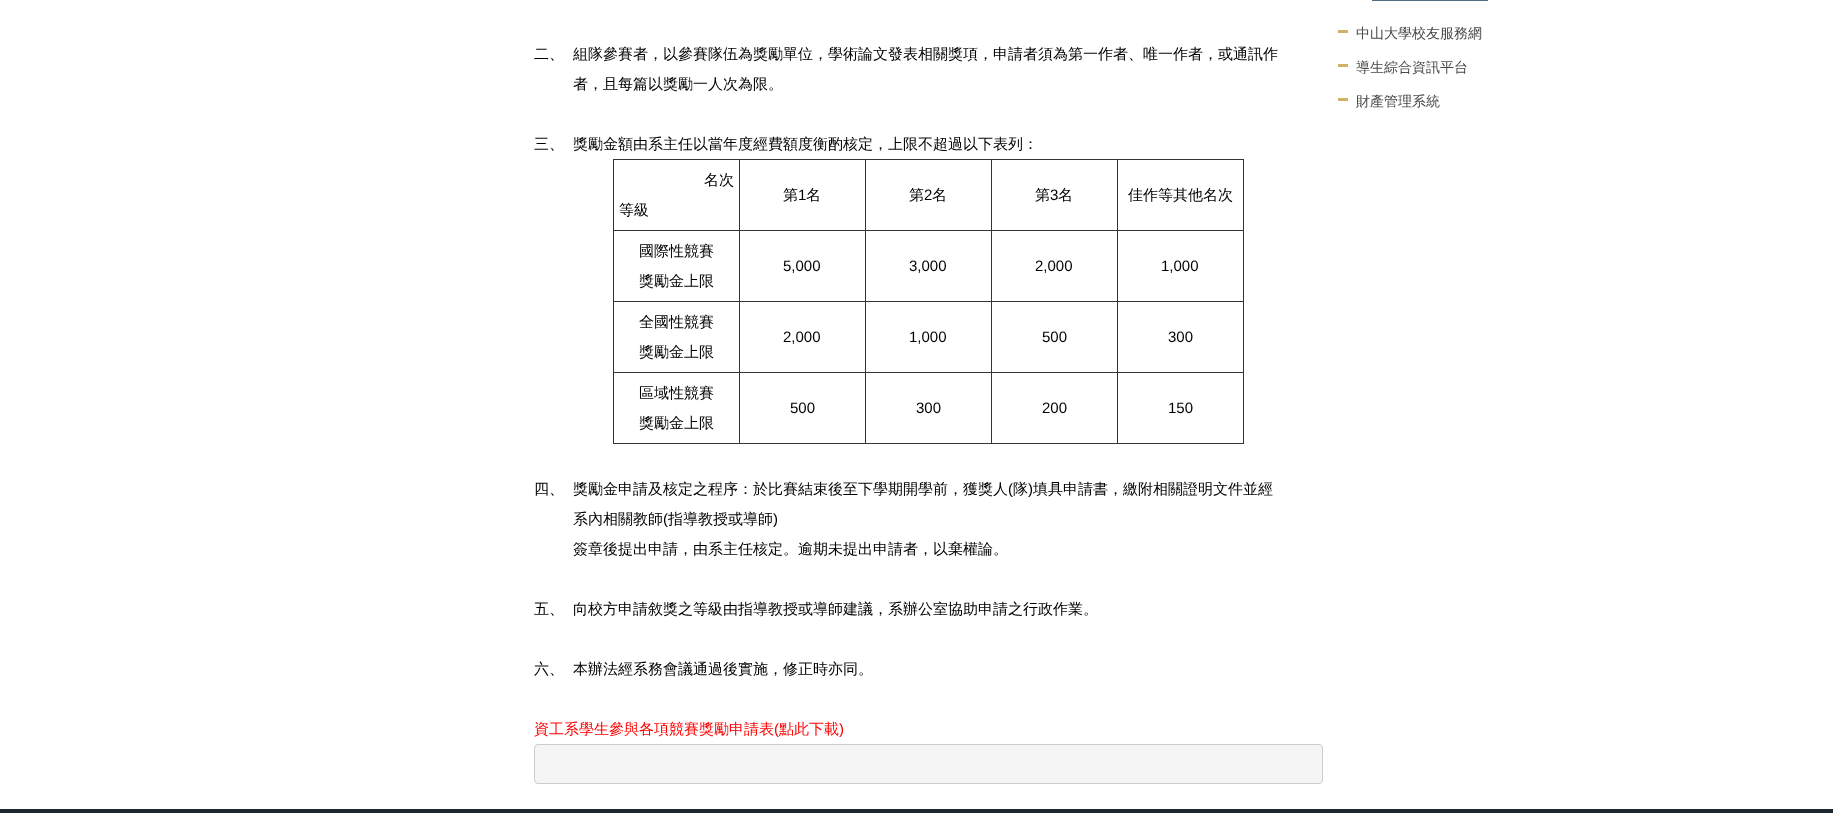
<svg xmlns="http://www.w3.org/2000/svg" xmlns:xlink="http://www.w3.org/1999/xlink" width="1833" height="813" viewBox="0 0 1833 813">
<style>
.cls-1{font:500 15px WenQuanYi Zen Hei;fill:#000000}
.cls-2{font:15px Liberation Sans;fill:#000000}
.cls-3{font:500 15px WenQuanYi Zen Hei;fill:#ff0000}
.cls-4{font:15px Liberation Sans;fill:#ff0000}
.cls-5{font:500 14px WenQuanYi Zen Hei;fill:#484848}
</style>
<rect width="100%" height="100%" fill="#ffffff"/>
<rect fill="#333333" x="613" y="159" width="631" height="1"/>
<rect fill="#333333" x="1243" y="159" width="1" height="285"/>
<rect fill="#333333" x="613" y="443" width="631" height="1"/>
<rect fill="#333333" x="613" y="159" width="1" height="285"/>
<rect fill="#333333" x="1117" y="230" width="127" height="1"/>
<rect fill="#333333" x="1117" y="301" width="127" height="1"/>
<rect fill="#333333" x="1117" y="372" width="127" height="1"/>
<rect fill="#333333" x="1117" y="372" width="1" height="72"/>
<rect fill="#333333" x="991" y="372" width="127" height="1"/>
<rect fill="#333333" x="1117" y="301" width="1" height="72"/>
<rect fill="#333333" x="991" y="301" width="127" height="1"/>
<rect fill="#333333" x="1117" y="230" width="1" height="72"/>
<rect fill="#333333" x="991" y="230" width="127" height="1"/>
<rect fill="#333333" x="991" y="372" width="1" height="72"/>
<rect fill="#333333" x="865" y="372" width="127" height="1"/>
<rect fill="#333333" x="991" y="301" width="1" height="72"/>
<rect fill="#333333" x="865" y="301" width="127" height="1"/>
<rect fill="#333333" x="991" y="230" width="1" height="72"/>
<rect fill="#333333" x="865" y="230" width="127" height="1"/>
<rect fill="#333333" x="865" y="372" width="1" height="72"/>
<rect fill="#333333" x="739" y="372" width="127" height="1"/>
<rect fill="#333333" x="865" y="301" width="1" height="72"/>
<rect fill="#333333" x="739" y="301" width="127" height="1"/>
<rect fill="#333333" x="865" y="230" width="1" height="72"/>
<rect fill="#333333" x="739" y="230" width="127" height="1"/>
<rect fill="#333333" x="739" y="372" width="1" height="72"/>
<rect fill="#333333" x="613" y="372" width="127" height="1"/>
<rect fill="#333333" x="739" y="301" width="1" height="72"/>
<rect fill="#333333" x="613" y="301" width="127" height="1"/>
<rect fill="#333333" x="739" y="230" width="1" height="72"/>
<rect fill="#333333" x="613" y="230" width="127" height="1"/>
<rect fill="#333333" x="739" y="159" width="1" height="72"/>
<rect fill="#333333" x="865" y="159" width="1" height="72"/>
<rect fill="#333333" x="991" y="159" width="1" height="72"/>
<rect fill="#333333" x="1117" y="159" width="1" height="72"/>
<rect fill="#f5f5f5" stroke="#cccccc" x="534.5" y="744.5" width="788" height="39" rx="3.5"/>
<rect fill="#506d86" x="1372" y="0" width="116" height="1"/>
<rect fill="#cfb266" x="1338" y="30" width="10" height="3"/>
<rect fill="#cfb266" x="1338" y="64" width="10" height="3"/>
<rect fill="#cfb266" x="1338" y="98" width="10" height="3"/>
<rect fill="#1d2731" x="0" y="809" width="1833" height="4"/>
<text class="cls-1" x="534" y="59">二、</text>
<text class="cls-1" x="573" y="59">組隊參賽者，以參賽隊伍為獎勵單位，學術論文發表相關獎項，申請者須為第一作者、唯一作者，或通訊作</text>
<text class="cls-1" x="573" y="89">者，且每篇以獎勵一人次為限。</text>
<text class="cls-1" x="534" y="149">三、</text>
<text class="cls-1" x="573" y="149">獎勵金額由系主任以當年度經費額度衡酌核定，上限不超過以下表列：</text>
<text class="cls-1" x="704" y="185">名次</text>
<text class="cls-1" x="619" y="215">等級</text>
<text class="cls-1" x="783" y="200">第</text>
<text class="cls-2" x="798" y="200">1</text>
<text class="cls-1" x="806" y="200">名</text>
<text class="cls-1" x="909" y="200">第</text>
<text class="cls-2" x="924" y="200">2</text>
<text class="cls-1" x="932" y="200">名</text>
<text class="cls-1" x="1035" y="200">第</text>
<text class="cls-2" x="1050" y="200">3</text>
<text class="cls-1" x="1058" y="200">名</text>
<text class="cls-1" x="1128" y="200">佳作等其他名次</text>
<text class="cls-1" x="639" y="256">國際性競賽</text>
<text class="cls-1" x="639" y="286">獎勵金上限</text>
<text class="cls-2" x="783" y="271">5,000</text>
<text class="cls-2" x="909" y="271">3,000</text>
<text class="cls-2" x="1035" y="271">2,000</text>
<text class="cls-2" x="1161" y="271">1,000</text>
<text class="cls-1" x="639" y="327">全國性競賽</text>
<text class="cls-1" x="639" y="357">獎勵金上限</text>
<text class="cls-2" x="783" y="342">2,000</text>
<text class="cls-2" x="909" y="342">1,000</text>
<text class="cls-2" x="1042" y="342">500</text>
<text class="cls-2" x="1168" y="342">300</text>
<text class="cls-1" x="639" y="398">區域性競賽</text>
<text class="cls-1" x="639" y="428">獎勵金上限</text>
<text class="cls-2" x="790" y="413">500</text>
<text class="cls-2" x="916" y="413">300</text>
<text class="cls-2" x="1042" y="413">200</text>
<text class="cls-2" x="1168" y="413">150</text>
<text class="cls-1" x="534" y="494">四、</text>
<text class="cls-1" x="573" y="494">獎勵金申請及核定之程序：於比賽結束後至下學期開學前，獲獎人</text>
<text class="cls-2" x="1008" y="494">(</text>
<text class="cls-1" x="1013" y="494">隊</text>
<text class="cls-2" x="1028" y="494">)</text>
<text class="cls-1" x="1033" y="494">填具申請書，繳附相關證明文件並經</text>
<text class="cls-1" x="573" y="524">系內相關教師</text>
<text class="cls-2" x="663" y="524">(</text>
<text class="cls-1" x="668" y="524">指導教授或導師</text>
<text class="cls-2" x="773" y="524">)</text>
<text class="cls-1" x="573" y="554">簽章後提出申請，由系主任核定。逾期未提出申請者，以棄權論。</text>
<text class="cls-1" x="534" y="614">五、</text>
<text class="cls-1" x="573" y="614">向校方申請敘獎之等級由指導教授或導師建議，系辦公室協助申請之行政作業。</text>
<text class="cls-1" x="534" y="674">六、</text>
<text class="cls-1" x="573" y="674">本辦法經系務會議通過後實施，修正時亦同。</text>
<text class="cls-3" x="534" y="734">資工系學生參與各項競賽獎勵申請表</text>
<text class="cls-4" x="774" y="734">(</text>
<text class="cls-3" x="779" y="734">點此下載</text>
<text class="cls-4" x="839" y="734">)</text>
<text class="cls-5" x="1356" y="38">中山大學校友服務網</text>
<text class="cls-5" x="1356" y="72">導生綜合資訊平台</text>
<text class="cls-5" x="1356" y="106">財產管理系統</text>
</svg>
